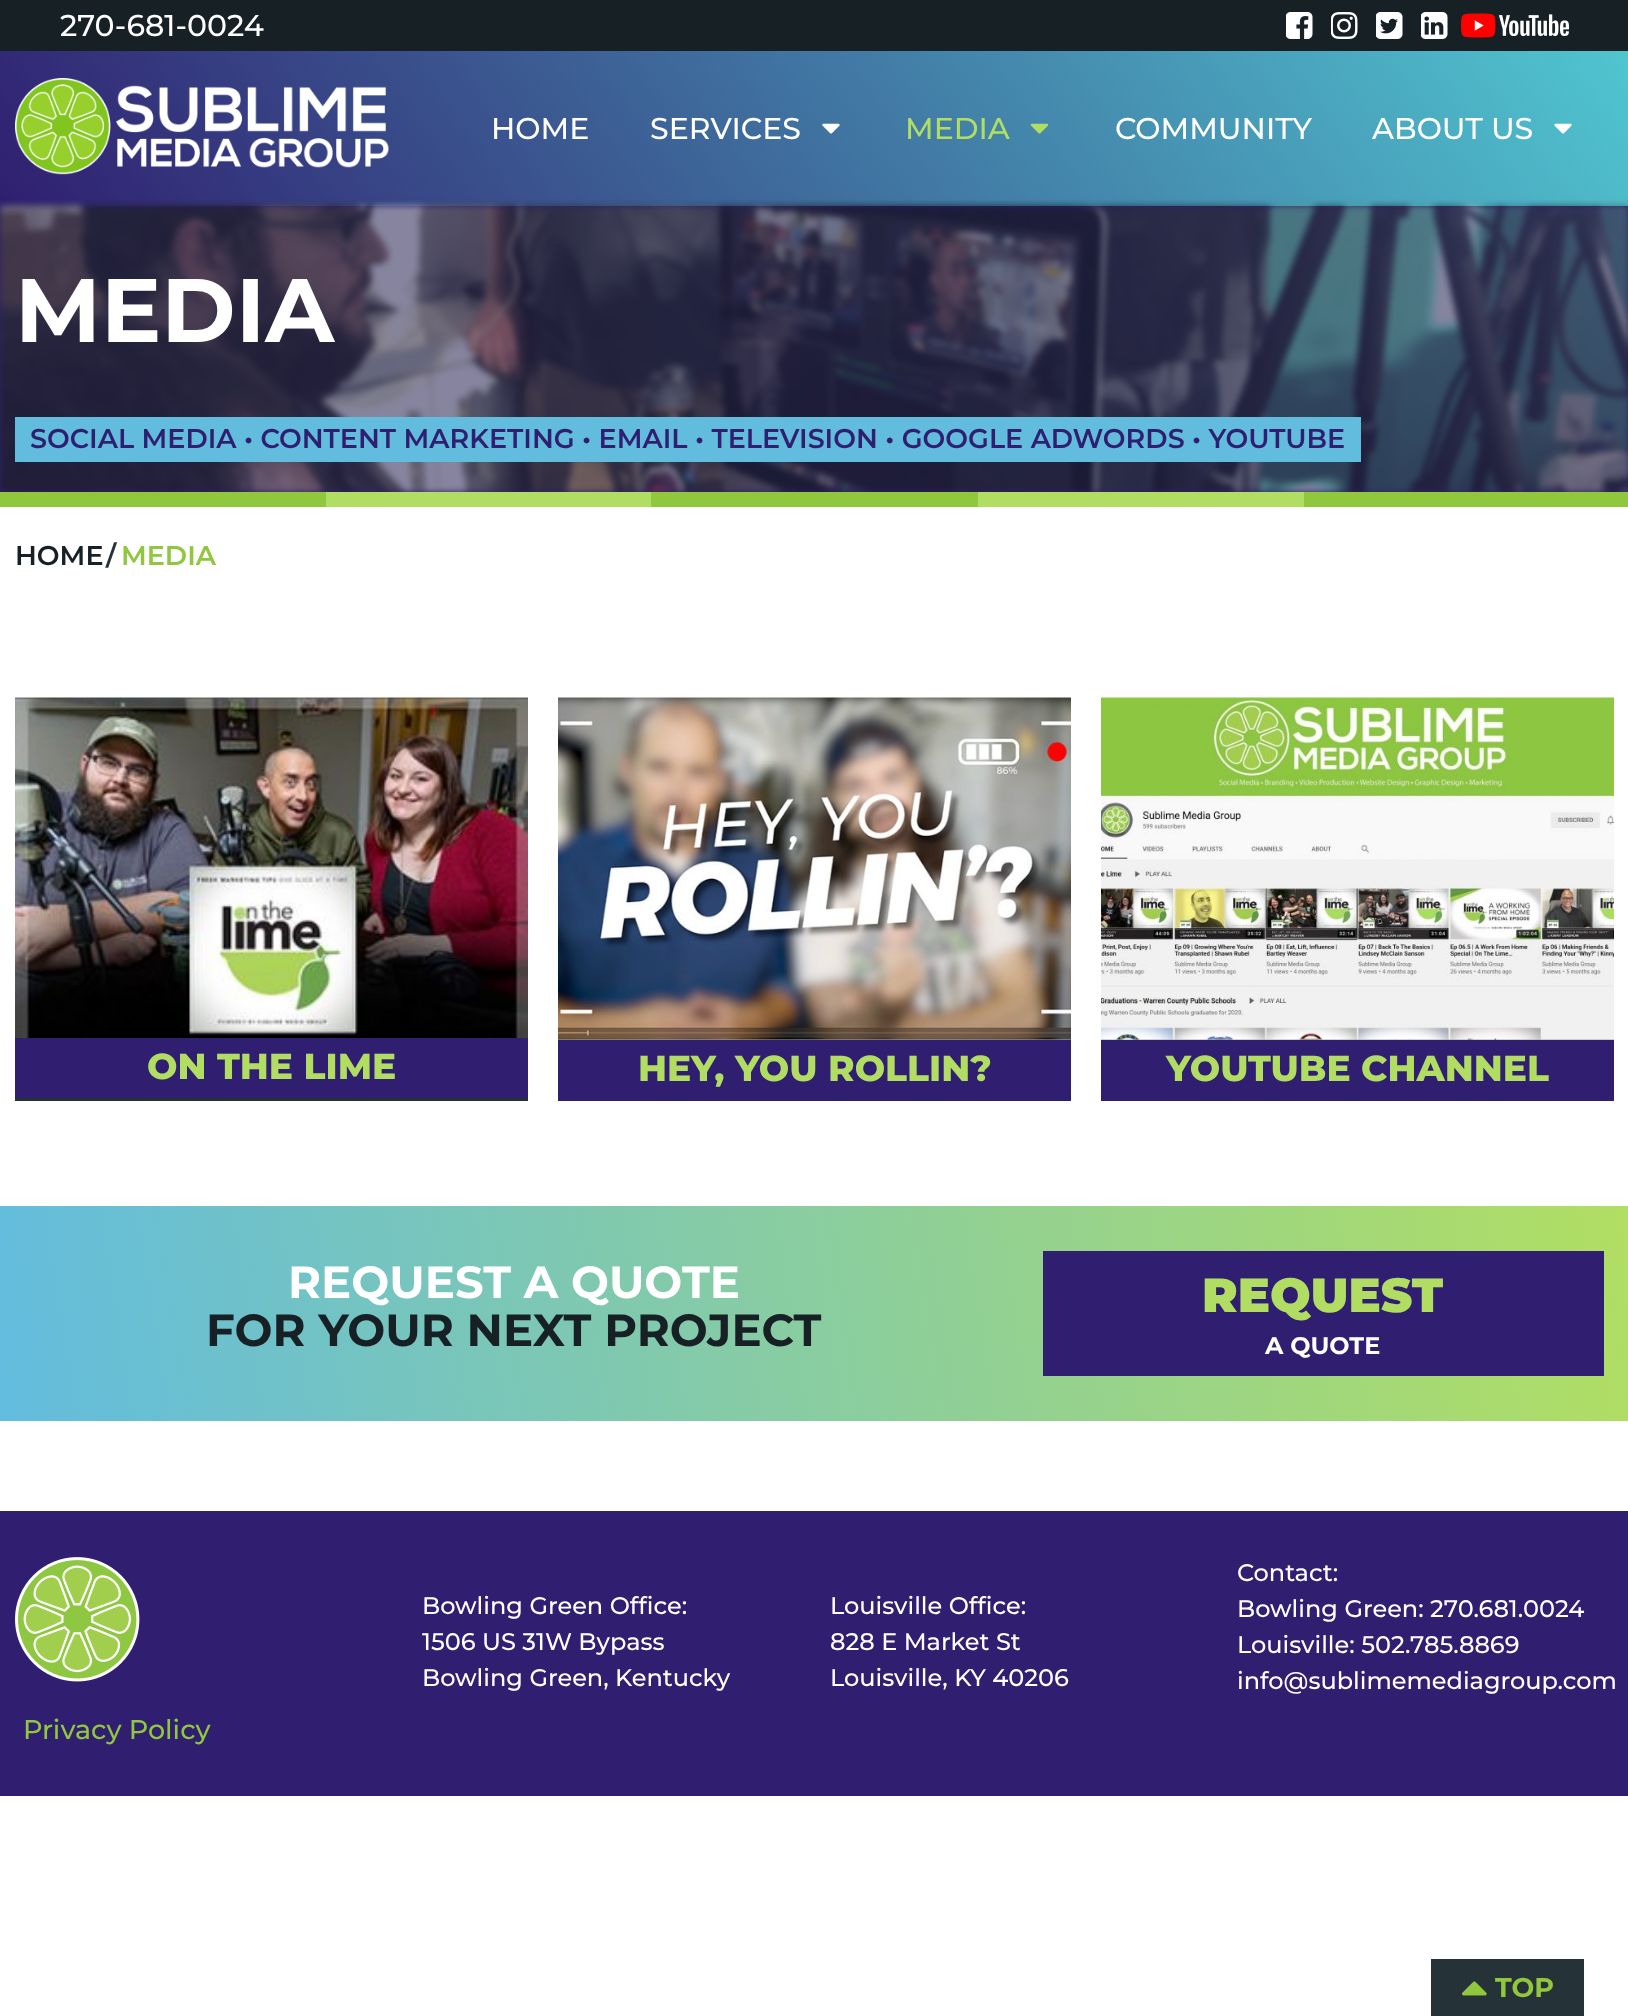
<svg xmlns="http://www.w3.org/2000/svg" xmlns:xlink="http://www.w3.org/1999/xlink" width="1628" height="2016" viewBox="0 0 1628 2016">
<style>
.cls-1{font:500 30px Montserrat;fill:#ffffff}
.cls-2{font:500 30px Montserrat;fill:#b1de62}
.cls-3{font:bold 90px Montserrat;fill:#ffffff}
.cls-4{font:600 27px Montserrat;fill:#301f70}
.cls-5{font:600 27px Montserrat;fill:#172125}
.cls-6{font:600 27px Montserrat;fill:#253238}
.cls-7{font:600 27px Montserrat;fill:#90c73d}
.cls-8{font:800 36px Montserrat;fill:#b1de62}
.cls-9{font:bold 45px Montserrat;fill:#ffffff}
.cls-10{font:bold 45px Montserrat;fill:#172125}
.cls-11{font:900 48px Montserrat;fill:#b1de62}
.cls-12{font:bold 24px Montserrat;fill:#ffffff}
.cls-13{font:500 24px Montserrat;fill:#ffffff}
.cls-14{font:bold 27px Montserrat;fill:#90c73d}
.cls-15{font:500 27px Montserrat;fill:#90c73d}
</style>
<defs>
<linearGradient id="g1" gradientUnits="userSpaceOnUse" x1="1384" y1="-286" x2="245" y2="542"><stop offset="0" stop-color="#50c5d0"/><stop offset="1" stop-color="#301f70"/></linearGradient>
<linearGradient id="g2" gradientUnits="userSpaceOnUse" x1="3.4" y1="1442" x2="1626" y2="1185"><stop offset="0" stop-color="#62bcde"/><stop offset="1" stop-color="#b1de62"/></linearGradient>
</defs>
<rect width="100%" height="100%" fill="#ffffff"/>
<rect fill="#172125" x="0" y="0" width="1628" height="51"/>
<image xlink:href="image0.png" x="1286" y="12" width="27" height="27"/>
<image xlink:href="image1.png" x="1331" y="12" width="27" height="27"/>
<image xlink:href="image2.png" x="1376" y="12" width="27" height="27"/>
<image xlink:href="image3.png" x="1421" y="12" width="27" height="27"/>
<image xlink:href="image4.png" x="1461" y="13" width="108" height="25"/>
<rect fill="url(#g1)" x="0" y="51" width="1628" height="155"/>
<image xlink:href="image5.png" x="15" y="78" width="374" height="97"/>
<image xlink:href="image6.png" x="822" y="123" width="18" height="11"/>
<image xlink:href="image7.png" x="1030" y="123" width="19" height="11"/>
<image xlink:href="image8.png" x="1554" y="123" width="18" height="11"/>
<rect fill="#301f70" x="0" y="206" width="1628" height="286"/>
<rect fill="#253238" fill-opacity="0.43" filter="blur(3px)" x="0" y="206" width="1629" height="286"/>
<image xlink:href="image9.png" x="0" y="200" width="1628" height="292"/>
<rect fill="#62bcde" x="15" y="417" width="1346" height="45"/>
<rect fill="#90c73d" x="0" y="492" width="326" height="15"/>
<rect fill="#b1de62" x="326" y="492" width="325" height="15"/>
<rect fill="#90c73d" x="651" y="492" width="327" height="15"/>
<rect fill="#b1de62" x="978" y="492" width="326" height="15"/>
<rect fill="#90c73d" x="1304" y="492" width="324" height="15"/>
<rect fill="#253238" x="15" y="1098" width="513" height="3"/>
<image xlink:href="image10.png" x="15" y="697" width="513" height="341"/>
<rect fill="#301f70" x="15" y="1038" width="513" height="60"/>
<rect fill="#a0adb4" x="558" y="1039" width="513" height="1"/>
<image xlink:href="image11.png" x="558" y="697" width="513" height="343"/>
<rect fill="#301f70" x="558" y="1040" width="513" height="61"/>
<rect fill="#a0adb4" x="1101" y="1039" width="513" height="1"/>
<image xlink:href="image12.png" x="1101" y="697" width="513" height="343"/>
<rect fill="#301f70" x="1101" y="1040" width="513" height="61"/>
<rect fill="url(#g2)" x="0" y="1206" width="1628" height="215"/>
<rect fill="#301f70" x="1043" y="1251" width="561" height="125"/>
<rect fill="#301f70" x="0" y="1511" width="1628" height="285"/>
<rect fill="#253238" x="1431" y="1959" width="153" height="57"/>
<image xlink:href="image13.png" x="1462" y="1981" width="25" height="15"/>
<image xlink:href="image14.png" x="15" y="1557" width="125" height="125"/>
<text class="cls-1" x="60" y="36">270-681-0024</text>
<text class="cls-1" x="491" y="139">HOME</text>
<text class="cls-1" x="650" y="139">SERVICES</text>
<text class="cls-2" x="905" y="139">MEDIA</text>
<text class="cls-1" x="1115" y="139">COMMUNITY</text>
<text class="cls-1" x="1372" y="139">ABOUT US</text>
<text class="cls-3" x="15" y="342">MEDIA</text>
<text class="cls-4" x="30" y="448">SOCIAL MEDIA • CONTENT MARKETING • EMAIL • TELEVISION • GOOGLE ADWORDS • YOUTUBE</text>
<text class="cls-5" x="15" y="565">HOME</text>
<text class="cls-6" x="106" y="565">/</text>
<text class="cls-7" x="121" y="565">MEDIA</text>
<text class="cls-8" x="147" y="1079">ON THE LIME</text>
<text class="cls-8" x="638" y="1081">HEY, YOU ROLLIN?</text>
<text class="cls-8" x="1166" y="1081">YOUTUBE CHANNEL</text>
<text class="cls-9" x="288" y="1298">REQUEST A QUOTE</text>
<text class="cls-10" x="206" y="1346">FOR YOUR NEXT PROJECT</text>
<text class="cls-11" x="1202" y="1312">REQUEST</text>
<text class="cls-12" x="1265" y="1354">A QUOTE</text>
<text class="cls-13"><tspan x="422" y="1614">Bowling Green Office:</tspan><tspan x="422" y="1650">1506 US 31W Bypass</tspan><tspan x="422" y="1686">Bowling Green, Kentucky</tspan></text>
<text class="cls-13"><tspan x="830" y="1614">Louisville Office:</tspan><tspan x="830" y="1650">828 E Market St</tspan><tspan x="830" y="1686">Louisville, KY 40206</tspan></text>
<text class="cls-13"><tspan x="1237" y="1581">Contact:</tspan><tspan x="1237" y="1617">Bowling Green: 270.681.0024</tspan><tspan x="1237" y="1653">Louisville: 502.785.8869</tspan><tspan x="1237" y="1689">info@sublimemediagroup.com</tspan></text>
<text class="cls-14" x="1495" y="1997">TOP</text>
<text class="cls-15" x="23" y="1739">Privacy Policy</text>
</svg>
